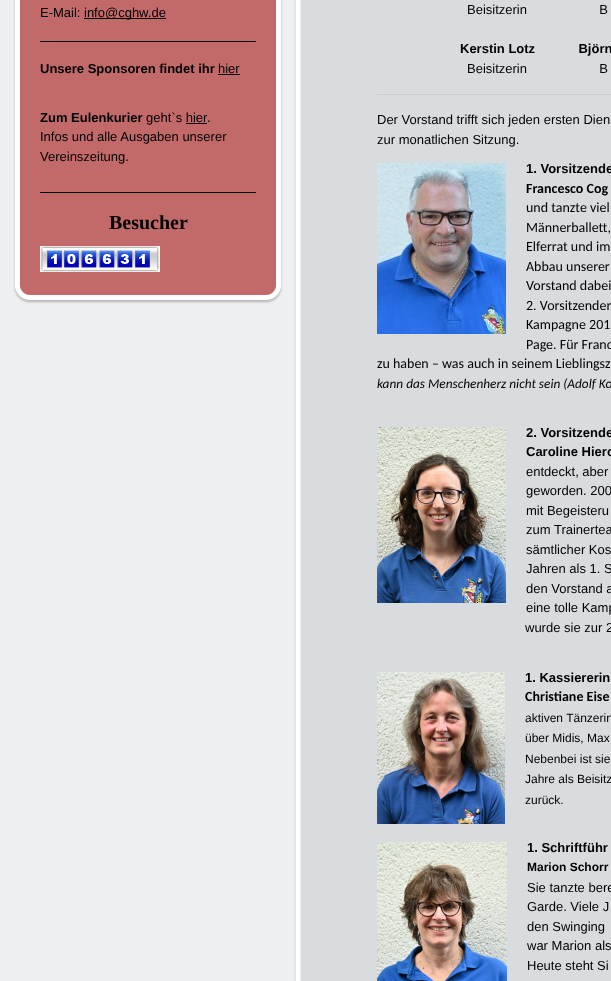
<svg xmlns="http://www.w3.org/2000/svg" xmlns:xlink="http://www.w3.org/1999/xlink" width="611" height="981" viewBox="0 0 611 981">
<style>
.cls-1{font:13px Liberation Sans;fill:#000000}
.cls-2{font:bold 13px Liberation Sans;fill:#000000}
.cls-3{font:bold 20px Liberation Serif;fill:#000000}
.cls-4{font:bold 14px Carlito;fill:#000000}
.cls-5{font:14px Carlito;fill:#000000}
.cls-6{font:italic 13.3px Carlito;fill:#000000}
.cls-7{font:12px Liberation Sans;fill:#000000}
.cls-8{font:bold 12px Liberation Sans;fill:#000000}
</style>
<rect width="100%" height="100%" fill="#eeeff0"/>
<rect fill="#9a0508" x="20" y="0" width="256" height="295"/>
<image xlink:href="image0.png" x="13" y="284" width="270" height="20"/>
<image xlink:href="image1.png" x="13" y="0" width="270" height="284"/>
<rect fill="#000000" x="84" y="18" width="82" height="1"/>
<rect fill="#000000" x="40" y="41" width="216" height="1"/>
<rect fill="#000000" x="218" y="74" width="22" height="1"/>
<rect fill="#000000" x="186" y="123" width="21" height="1"/>
<rect fill="#000000" x="40" y="192" width="216" height="1"/>
<image xlink:href="image2.png" x="40" y="246" width="6" height="26"/>
<image xlink:href="image3.png" x="46" y="246" width="17" height="26"/>
<image xlink:href="image4.png" x="63" y="246" width="17" height="26"/>
<image xlink:href="image5.png" x="80" y="246" width="18" height="26"/>
<image xlink:href="image5.png" x="98" y="246" width="18" height="26"/>
<image xlink:href="image6.png" x="116" y="246" width="18" height="26"/>
<image xlink:href="image3.png" x="134" y="246" width="17" height="26"/>
<image xlink:href="image7.png" x="151" y="246" width="9" height="26"/>
<image xlink:href="image8.png" x="294" y="0" width="317" height="981"/>
<rect fill="#cccccc" x="377" y="94" width="234" height="1"/>
<image xlink:href="image9.png" x="377" y="163" width="129" height="171"/>
<image xlink:href="image10.png" x="377" y="427" width="129" height="176"/>
<image xlink:href="image11.png" x="377" y="672" width="128" height="152"/>
<image xlink:href="image12.png" x="377" y="842" width="130" height="139"/>
<text class="cls-1" x="40" y="17">E-Mail:</text>
<text class="cls-1" x="84" y="17">info@cghw.de</text>
<text class="cls-2" x="40" y="73">Unsere Sponsoren findet ihr</text>
<text class="cls-1" x="218" y="73">hier</text>
<text class="cls-2" x="40" y="122">Zum Eulenkurier</text>
<text class="cls-1" x="146" y="122">geht`s hier</text>
<text class="cls-1" x="207" y="122">.</text>
<text class="cls-1"><tspan x="40" y="141">Infos und alle Ausgaben unserer</tspan><tspan x="40" y="161">Vereinszeitung.</tspan></text>
<text class="cls-3" x="109" y="229">Besucher</text>
<text class="cls-1" xml:space="preserve" x="467" y="14">Beisitzerin                    B</text>
<text class="cls-2" xml:space="preserve" x="460" y="53">Kerstin Lotz            Björn</text>
<text class="cls-1" xml:space="preserve" x="467" y="73">Beisitzerin                    B</text>
<text class="cls-1"><tspan x="377" y="124">Der Vorstand trifft sich jeden ersten Dien</tspan><tspan x="377" y="144">zur monatlichen Sitzung.</tspan></text>
<text class="cls-2" x="526" y="173">1. Vorsitzende</text>
<text class="cls-4" x="526" y="193">Francesco Cog</text>
<text class="cls-5"><tspan x="526" y="212">und tanzte viel</tspan><tspan x="526" y="232">Männerballett,</tspan><tspan x="526" y="251">Elferrat und im</tspan><tspan x="526" y="271">Abbau unserer</tspan><tspan x="526" y="290">Vorstand dabei</tspan><tspan x="526" y="310">2. Vorsitzender</tspan><tspan x="526" y="329">Kampagne 201</tspan><tspan x="526" y="349">Page. Für Franc</tspan></text>
<text class="cls-5" x="377" y="368">zu haben – was auch in seinem Lieblingsz</text>
<text class="cls-6" x="377" y="388">kann das Menschenherz nicht sein (Adolf Ko</text>
<text class="cls-2"><tspan x="526" y="437">2. Vorsitzende</tspan><tspan x="526" y="456">Caroline Hiero</tspan></text>
<text class="cls-1"><tspan x="526" y="476">entdeckt, aber</tspan><tspan x="526" y="495">geworden. 200</tspan><tspan x="526" y="515">mit Begeisteru</tspan><tspan x="526" y="534">zum Trainertea</tspan><tspan x="526" y="554">sämtlicher Kos</tspan><tspan x="526" y="573">Jahren als 1. S</tspan><tspan x="526" y="593">den Vorstand a</tspan><tspan x="526" y="612">eine tolle Kamp</tspan></text>
<text class="cls-1" x="525" y="632">wurde sie zur 2</text>
<text class="cls-2" x="525" y="682">1. Kassiererin</text>
<text class="cls-4" x="525" y="701">Christiane Eise</text>
<text class="cls-7"><tspan x="525" y="722">aktiven Tänzerin</tspan><tspan x="525" y="742">über Midis, Max</tspan><tspan x="525" y="763">Nebenbei ist sie</tspan><tspan x="525" y="783">Jahre als Beisitz</tspan><tspan x="525" y="804">zurück.</tspan></text>
<text class="cls-2" x="527" y="852">1. Schriftführ</text>
<text class="cls-8" x="527" y="871">Marion Schorr</text>
<text class="cls-1"><tspan x="527" y="892">Sie tanzte bere</tspan><tspan x="527" y="911">Garde. Viele J</tspan><tspan x="527" y="931">den Swinging</tspan><tspan x="527" y="950">war Marion als</tspan><tspan x="527" y="970">Heute steht Si</tspan></text>
</svg>
